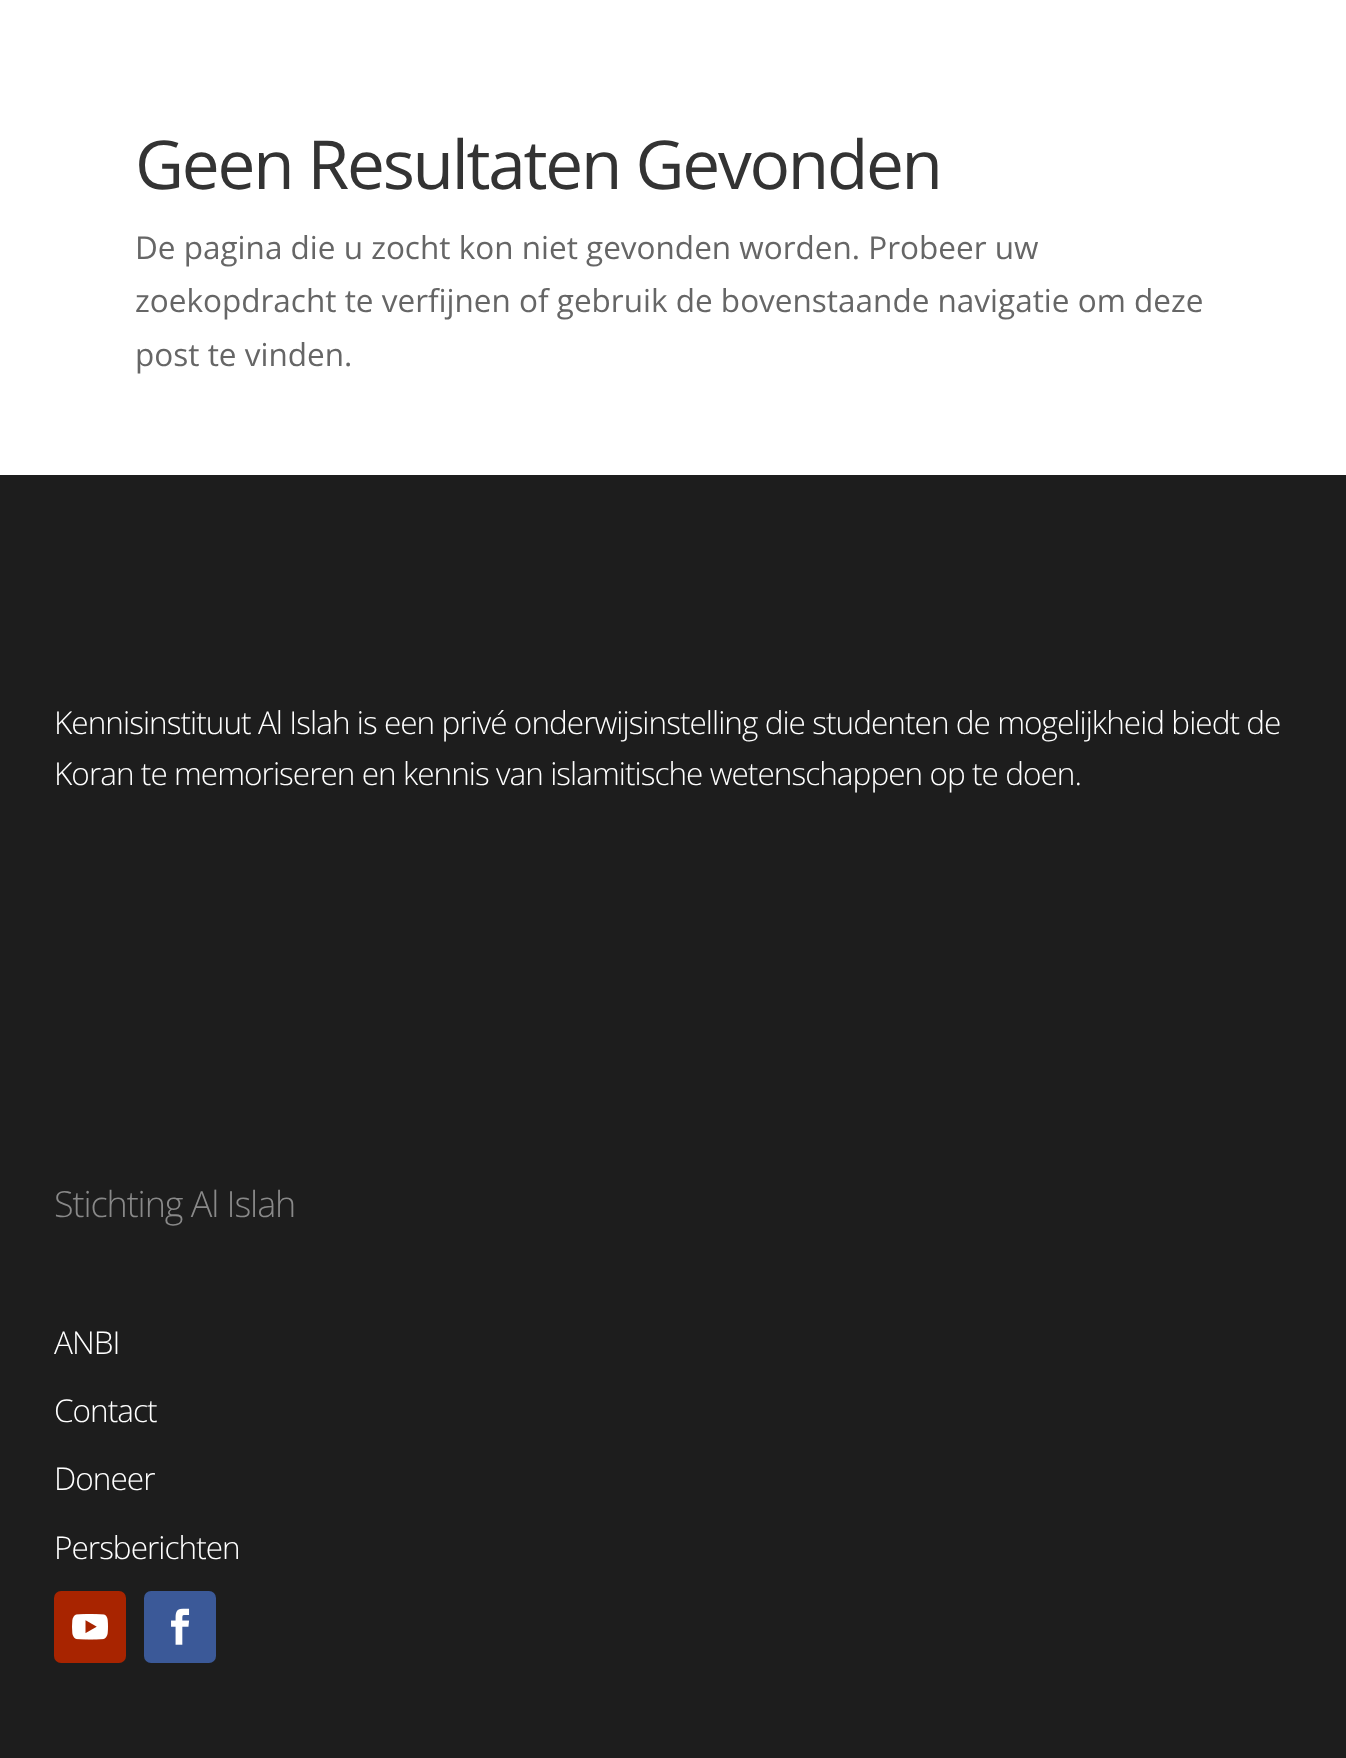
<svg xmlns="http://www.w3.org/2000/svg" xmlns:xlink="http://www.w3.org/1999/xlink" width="1346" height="1758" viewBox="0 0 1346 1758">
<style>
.cls-1{font:67.5px Open Sans;letter-spacing:-2.25px;fill:#333333}
.cls-2{font:31.5px Open Sans;fill:#666666}
.cls-3{font:300 31.5px Open Sans;letter-spacing:-0.95px;fill:#ffffff}
.cls-4{font:300 36px Open Sans;letter-spacing:-1.1px;fill:#898989}
</style>
<rect width="100%" height="100%" fill="#ffffff"/>
<rect fill="#1d1d1d" x="0" y="475" width="1346" height="1283"/>
<rect fill="#a82400" x="54" y="1591" width="72" height="72" rx="7"/>
<image xlink:href="image0.png" x="72" y="1614" width="36" height="26"/>
<rect fill="#3b5998" x="144" y="1591" width="72" height="72" rx="7"/>
<image xlink:href="image1.png" x="171" y="1608" width="19" height="37"/>
<text class="cls-1" x="135" y="189">Geen Resultaten Gevonden</text>
<text class="cls-2"><tspan x="135" y="259">De pagina die u zocht kon niet gevonden worden. Probeer uw</tspan><tspan x="135" y="312">zoekopdracht te verfijnen of gebruik de bovenstaande navigatie om deze</tspan><tspan x="135" y="366">post te vinden.</tspan></text>
<text class="cls-3"><tspan x="54" y="734">Kennisinstituut Al Islah is een privé onderwijsinstelling die studenten de mogelijkheid biedt de</tspan><tspan x="54" y="785">Koran te memoriseren en kennis van islamitische wetenschappen op te doen.</tspan></text>
<text class="cls-4" x="54" y="1217">Stichting Al Islah</text>
<text class="cls-3" x="54" y="1354">ANBI</text>
<text class="cls-3" x="54" y="1422">Contact</text>
<text class="cls-3" x="54" y="1490">Doneer</text>
<text class="cls-3" x="54" y="1559">Persberichten</text>
</svg>
